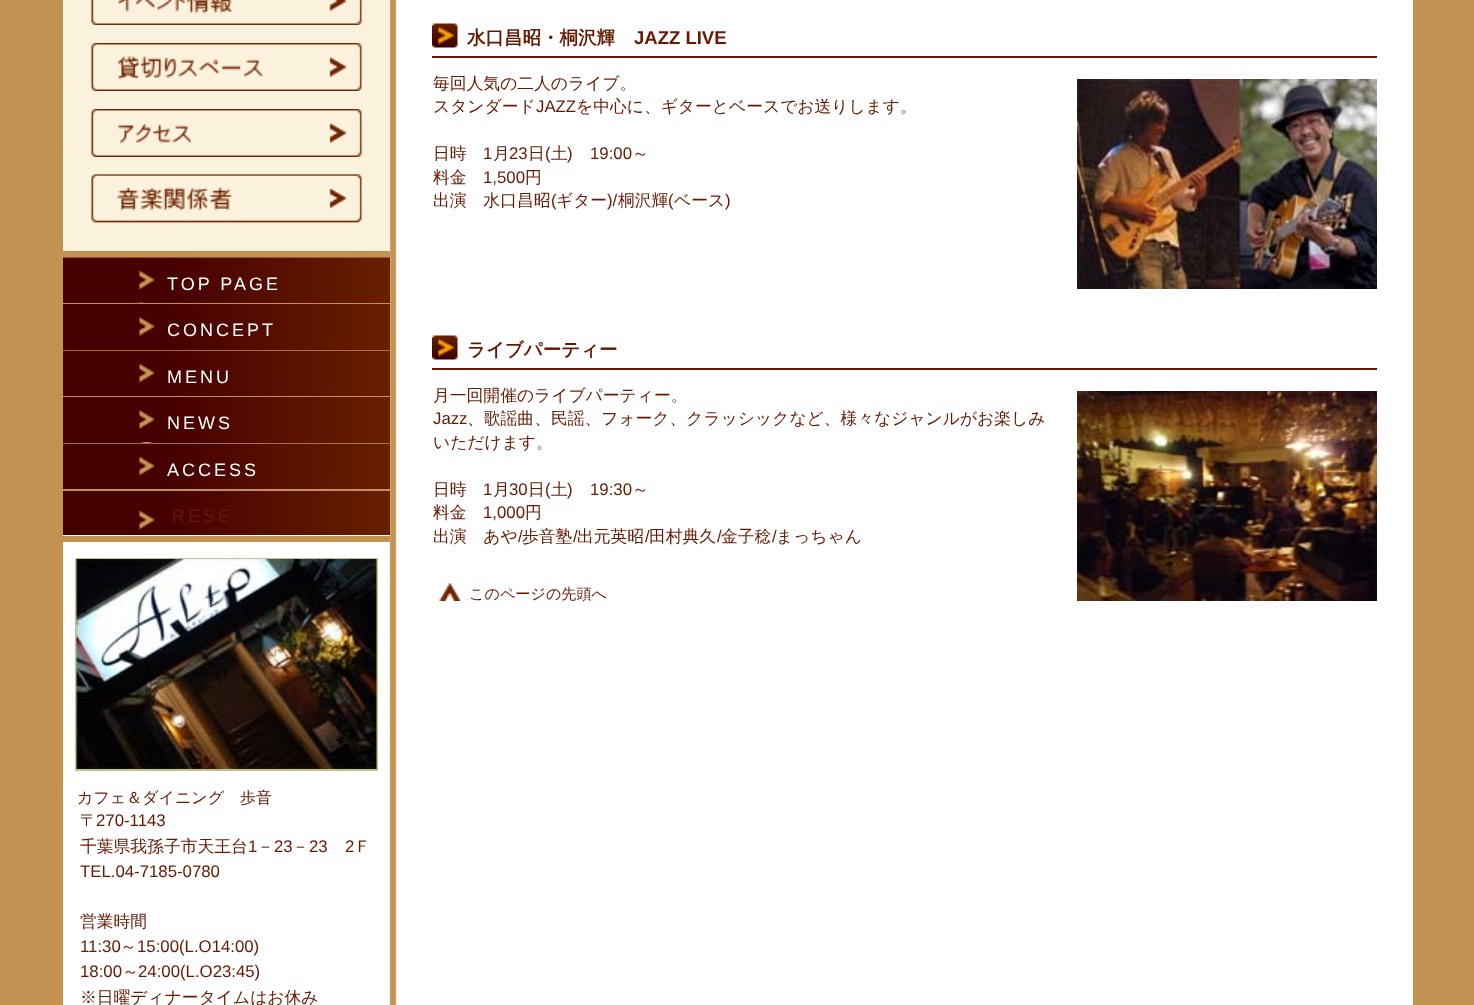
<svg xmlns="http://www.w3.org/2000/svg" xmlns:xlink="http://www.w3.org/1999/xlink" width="1474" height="1005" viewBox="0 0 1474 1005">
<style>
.cls-1{font:18px Liberation Sans;letter-spacing:3px;fill:#ffffff}
.cls-2{font:18px Liberation Sans;letter-spacing:3px;fill:#661900}
.cls-3{font:bold 18.5px WenQuanYi Zen Hei;fill:#661900}
.cls-4{font:bold 18.5px Liberation Sans;fill:#661900}
.cls-5{font:500 16.8px WenQuanYi Zen Hei;fill:#661900}
.cls-6{font:16.8px Liberation Sans;fill:#661900}
.cls-7{font:500 15.1px WenQuanYi Zen Hei;fill:#661900}
.cls-8{font:500 16px WenQuanYi Zen Hei;fill:#661900}
</style>
<rect width="100%" height="100%" fill="#c29251"/>
<image xlink:href="image0.png" x="63" y="0" width="1350" height="1005"/>
<rect fill="#c29251" x="63" y="536" width="327" height="6"/>
<rect fill="#c29251" x="63" y="251" width="327" height="7"/>
<image xlink:href="image1.png" x="63" y="257" width="327" height="278"/>
<rect fill="#c29251" x="63" y="303" width="327" height="1"/>
<image xlink:href="image2.png" x="63" y="257" width="327" height="46"/>
<rect fill="#c29251" x="63" y="350" width="327" height="1"/>
<image xlink:href="image3.png" x="63" y="304" width="327" height="32"/>
<rect fill="#c29251" x="63" y="396" width="327" height="1"/>
<image xlink:href="image4.png" x="63" y="350" width="327" height="33"/>
<rect fill="#c29251" x="63" y="443" width="327" height="1"/>
<image xlink:href="image5.png" x="63" y="397" width="327" height="45"/>
<rect fill="#c29251" x="63" y="489" width="327" height="2"/>
<image xlink:href="image4.png" x="63" y="443" width="327" height="33"/>
<image xlink:href="image6.png" x="432" y="23" width="26" height="25"/>
<rect fill="#661900" x="432" y="56" width="945" height="2"/>
<image xlink:href="image7.png" x="1077" y="79" width="300" height="210"/>
<image xlink:href="image6.png" x="432" y="335" width="26" height="25"/>
<rect fill="#661900" x="432" y="368" width="945" height="2"/>
<image xlink:href="image8.png" x="1077" y="391" width="300" height="210"/>
<image xlink:href="image9.png" x="439" y="583" width="22" height="18"/>
<rect fill="#fbf2dd" x="63" y="0" width="327" height="251"/>
<image xlink:href="image10.png" x="91" y="0" width="271" height="25"/>
<image xlink:href="image11.png" x="91" y="43" width="271" height="48"/>
<image xlink:href="image12.png" x="91" y="109" width="271" height="48"/>
<image xlink:href="image13.png" x="91" y="174" width="271" height="49"/>
<rect fill="none" stroke="#c3c285" stroke-width="2" x="76" y="559" width="301" height="211"/>
<image xlink:href="image14.png" x="76" y="559" width="301" height="210"/>
<text class="cls-1" x="167" y="290">TOP PAGE</text>
<text class="cls-1" x="167" y="336">CONCEPT</text>
<text class="cls-1" x="167" y="383">MENU</text>
<text class="cls-1" x="167" y="429">NEWS</text>
<text class="cls-1" x="167" y="476">ACCESS</text>
<text class="cls-2" x="172" y="522">RESE</text>
<text class="cls-3" x="467" y="44">水口昌昭・桐沢輝</text>
<text class="cls-4" x="634" y="44">JAZZ LIVE</text>
<text class="cls-5"><tspan x="433" y="89">毎回人気の二人のライブ。</tspan><tspan x="433" y="112">スタンダード</tspan></text>
<text class="cls-6" x="536" y="112">JAZZ</text>
<text class="cls-5" x="576" y="112">を中心に、ギターとベースでお送りします。</text>
<text class="cls-5" x="433" y="159">日時</text>
<text class="cls-6" x="483" y="159">1</text>
<text class="cls-5" x="493" y="159">月</text>
<text class="cls-6" x="509" y="159">23</text>
<text class="cls-5" x="528" y="159">日</text>
<text class="cls-6" x="545" y="159">(</text>
<text class="cls-5" x="551" y="159">土</text>
<text class="cls-6" x="567" y="159">)</text>
<text class="cls-6" x="590" y="159">19:00</text>
<text class="cls-5" x="632" y="159">～</text>
<text class="cls-5" x="433" y="183">料金</text>
<text class="cls-6" x="483" y="183">1,500</text>
<text class="cls-5" x="525" y="183">円</text>
<text class="cls-5" x="433" y="206">出演　水口昌昭</text>
<text class="cls-6" x="551" y="206">(</text>
<text class="cls-5" x="556" y="206">ギター</text>
<text class="cls-6" x="607" y="206">)/</text>
<text class="cls-5" x="618" y="206">桐沢輝</text>
<text class="cls-6" x="668" y="206">(</text>
<text class="cls-5" x="674" y="206">ベース</text>
<text class="cls-6" x="725" y="206">)</text>
<text class="cls-3" x="467" y="356">ライブパーティー</text>
<text class="cls-5" x="433" y="401">月一回開催のライブパーティー。</text>
<text class="cls-6" x="433" y="424">Jazz</text>
<text class="cls-5" x="467" y="424">、歌謡曲、民謡、フォーク、クラッシックなど、様々なジャンルがお楽しみ</text>
<text class="cls-5" x="433" y="448">いただけます。</text>
<text class="cls-5" x="433" y="495">日時</text>
<text class="cls-6" x="483" y="495">1</text>
<text class="cls-5" x="493" y="495">月</text>
<text class="cls-6" x="509" y="495">30</text>
<text class="cls-5" x="528" y="495">日</text>
<text class="cls-6" x="545" y="495">(</text>
<text class="cls-5" x="551" y="495">土</text>
<text class="cls-6" x="567" y="495">)</text>
<text class="cls-6" x="590" y="495">19:30</text>
<text class="cls-5" x="632" y="495">～</text>
<text class="cls-5" x="433" y="518">料金</text>
<text class="cls-6" x="483" y="518">1,000</text>
<text class="cls-5" x="525" y="518">円</text>
<text class="cls-5" x="433" y="542">出演　あや</text>
<text class="cls-6" x="518" y="542">/</text>
<text class="cls-5" x="522" y="542">歩音塾</text>
<text class="cls-6" x="573" y="542">/</text>
<text class="cls-5" x="577" y="542">出元英昭</text>
<text class="cls-6" x="645" y="542">/</text>
<text class="cls-5" x="649" y="542">田村典久</text>
<text class="cls-6" x="717" y="542">/</text>
<text class="cls-5" x="721" y="542">金子稔</text>
<text class="cls-6" x="772" y="542">/</text>
<text class="cls-5" x="776" y="542">まっちゃん</text>
<text class="cls-7" x="469" y="599">このページの先頭へ</text>
<text class="cls-8" x="77" y="803">カフェ＆ダイニング　歩音</text>
<text class="cls-5" x="80" y="826">〒</text>
<text class="cls-6" x="96" y="826">270-1143</text>
<text class="cls-5" x="80" y="852">千葉県我孫子市天王台</text>
<text class="cls-6" x="248" y="852">1</text>
<text class="cls-5" x="257" y="852">－</text>
<text class="cls-6" x="274" y="852">23</text>
<text class="cls-5" x="292" y="852">－</text>
<text class="cls-6" x="309" y="852">23</text>
<text class="cls-6" x="345" y="852">2</text>
<text class="cls-5" x="354" y="852">Ｆ</text>
<text class="cls-6" x="80" y="877">TEL.04-7185-0780</text>
<text class="cls-5" x="80" y="927">営業時間</text>
<text class="cls-6" x="80" y="952">11:30</text>
<text class="cls-5" x="120" y="952">～</text>
<text class="cls-6" x="137" y="952">15:00(L.O14:00)</text>
<text class="cls-6" x="80" y="977">18:00</text>
<text class="cls-5" x="122" y="977">～</text>
<text class="cls-6" x="138" y="977">24:00(L.O23:45)</text>
<text class="cls-5" x="80" y="1003">※日曜ディナータイムはお休み</text>
</svg>
